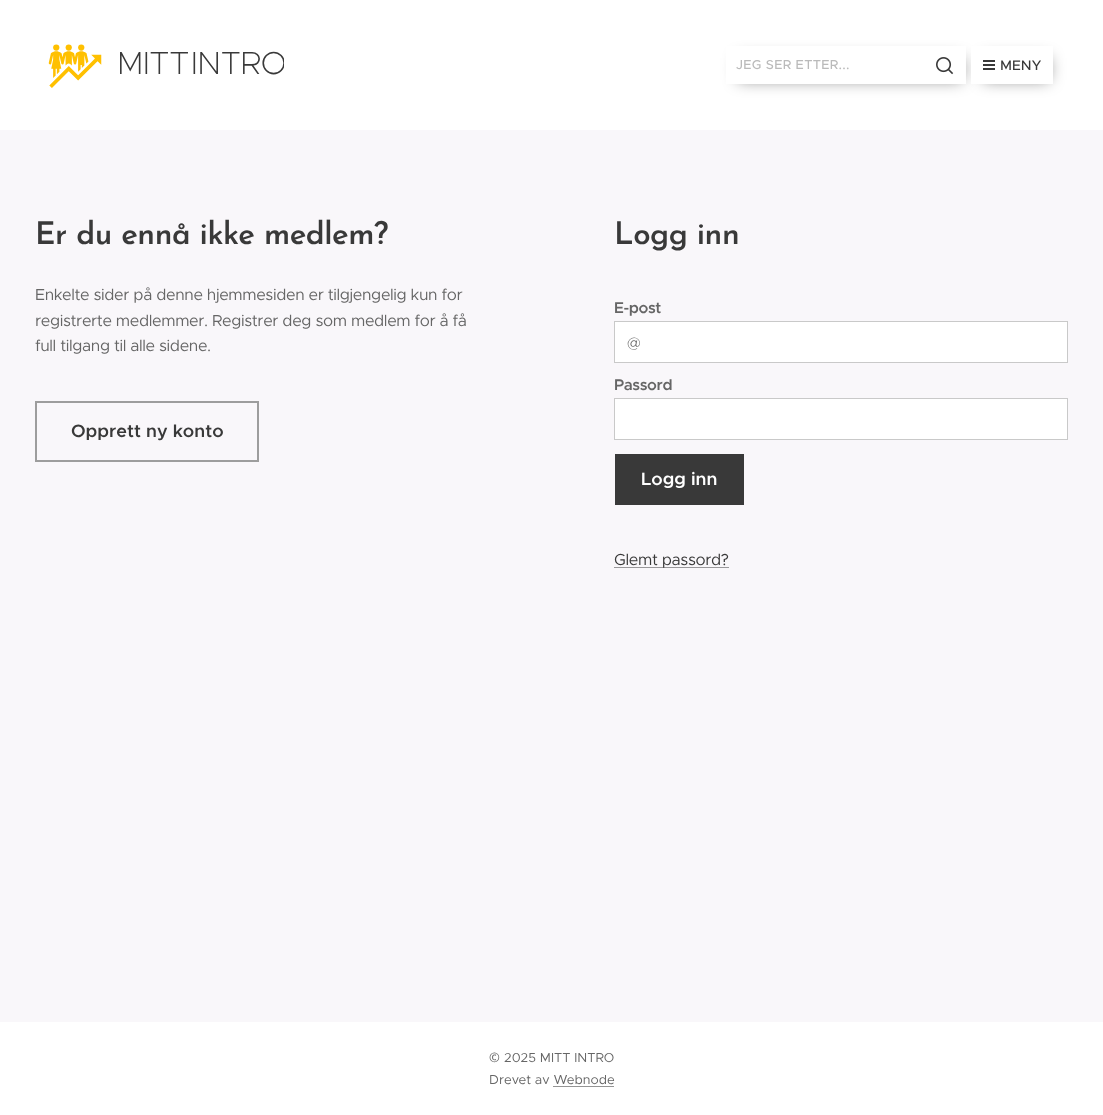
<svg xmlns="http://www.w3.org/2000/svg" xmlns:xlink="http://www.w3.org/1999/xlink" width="1103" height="1115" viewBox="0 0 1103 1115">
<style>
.cls-1{font:200 32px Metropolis;letter-spacing:-0.37px;fill:#393939}
.cls-2{font:500 13px Metropolis;letter-spacing:0.3px;fill:#bababa}
.cls-3{font:500 14px Metropolis;fill:#393939}
.cls-4{font:600 31.25px Josefin Sans;letter-spacing:-0.5px;fill:#393939}
.cls-5{font:16px Metropolis;letter-spacing:-0.37px;fill:#666666}
.cls-6{font:600 18px Metropolis;fill:#393939}
.cls-7{font:600 15.5px Metropolis;letter-spacing:-0.37px;fill:#666666}
.cls-8{font:300 15.5px Metropolis;fill:#666666}
.cls-9{font:600 18px Metropolis;fill:#ffffff}
.cls-10{font:16px Metropolis;letter-spacing:-0.37px;fill:#393939}
.cls-11{font:13px Noto Sans;fill:#666666}
.cls-12{font:13px Metropolis;fill:#666666}
</style>
<defs>
<clipPath id="clip1"><path d="M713 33H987V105H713ZM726 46H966V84H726Z" clip-rule="evenodd"/></clipPath>
<clipPath id="clip2"><rect x="110" y="41" width="174" height="48"/></clipPath>
</defs>
<rect width="100%" height="100%" fill="#ffffff"/>
<image xlink:href="image0.png" x="48" y="44" width="54" height="44"/>
<g clip-path="url(#clip1)">
<rect fill="#000000" fill-opacity="0.5" filter="blur(8px)" x="738" y="58" width="224" height="22"/>
</g>
<image xlink:href="image1.png" x="936" y="57" width="18" height="18"/>
<rect fill="#000000" fill-opacity="0.5" filter="blur(8px)" x="983" y="58" width="66" height="22"/>
<rect fill="#ffffff" x="971" y="46" width="82" height="38"/>
<rect fill="#393939" x="983" y="64" width="12" height="2"/>
<rect fill="#393939" x="983" y="60" width="12" height="2"/>
<rect fill="#393939" x="983" y="68" width="12" height="2"/>
<rect fill="#f9f7fa" x="0" y="130" width="1103" height="892"/>
<rect fill="none" stroke="#9d9d9d" stroke-width="2" x="36" y="402" width="222" height="59"/>
<rect fill="#ffffff" stroke="#c9c9c9" x="614.5" y="321.5" width="453" height="41"/>
<rect fill="#ffffff" stroke="#c9c9c9" x="614.5" y="398.5" width="453" height="41"/>
<rect fill="#393939" x="615" y="454" width="129" height="51"/>
<rect fill="#99989a" x="614" y="567" width="115" height="1"/>
<rect fill="#949494" x="553" y="1086" width="61" height="1"/>
<text class="cls-1" x="117" y="74">MITT</text>
<g clip-path="url(#clip2)">
<text class="cls-1" x="191" y="74">INTRO</text>
</g>
<text class="cls-2" x="736" y="69">JEG SER ETTER...</text>
<text class="cls-3" x="1000" y="70">MENY</text>
<text class="cls-4" x="35" y="244">Er du ennå ikke medlem?</text>
<text class="cls-5"><tspan x="35" y="300">Enkelte sider på denne hjemmesiden er tilgjengelig kun for</tspan><tspan x="35" y="326">registrerte medlemmer. Registrer deg som medlem for å få</tspan><tspan x="35" y="351">full tilgang til alle sidene.</tspan></text>
<text class="cls-6" x="71" y="437">Opprett ny konto</text>
<text class="cls-4" x="614" y="244">Logg inn</text>
<text class="cls-7" x="614" y="313">E-post</text>
<text class="cls-8" x="627" y="348">@</text>
<text class="cls-7" x="614" y="390">Passord</text>
<text class="cls-9" x="641" y="485">Logg inn</text>
<text class="cls-10" x="614" y="565">Glemt passord?</text>
<text class="cls-11" x="489" y="1062">©</text>
<text class="cls-12" x="504" y="1062">2025 MITT INTRO</text>
<text class="cls-12" x="489" y="1084">Drevet av Webnode</text>
</svg>
